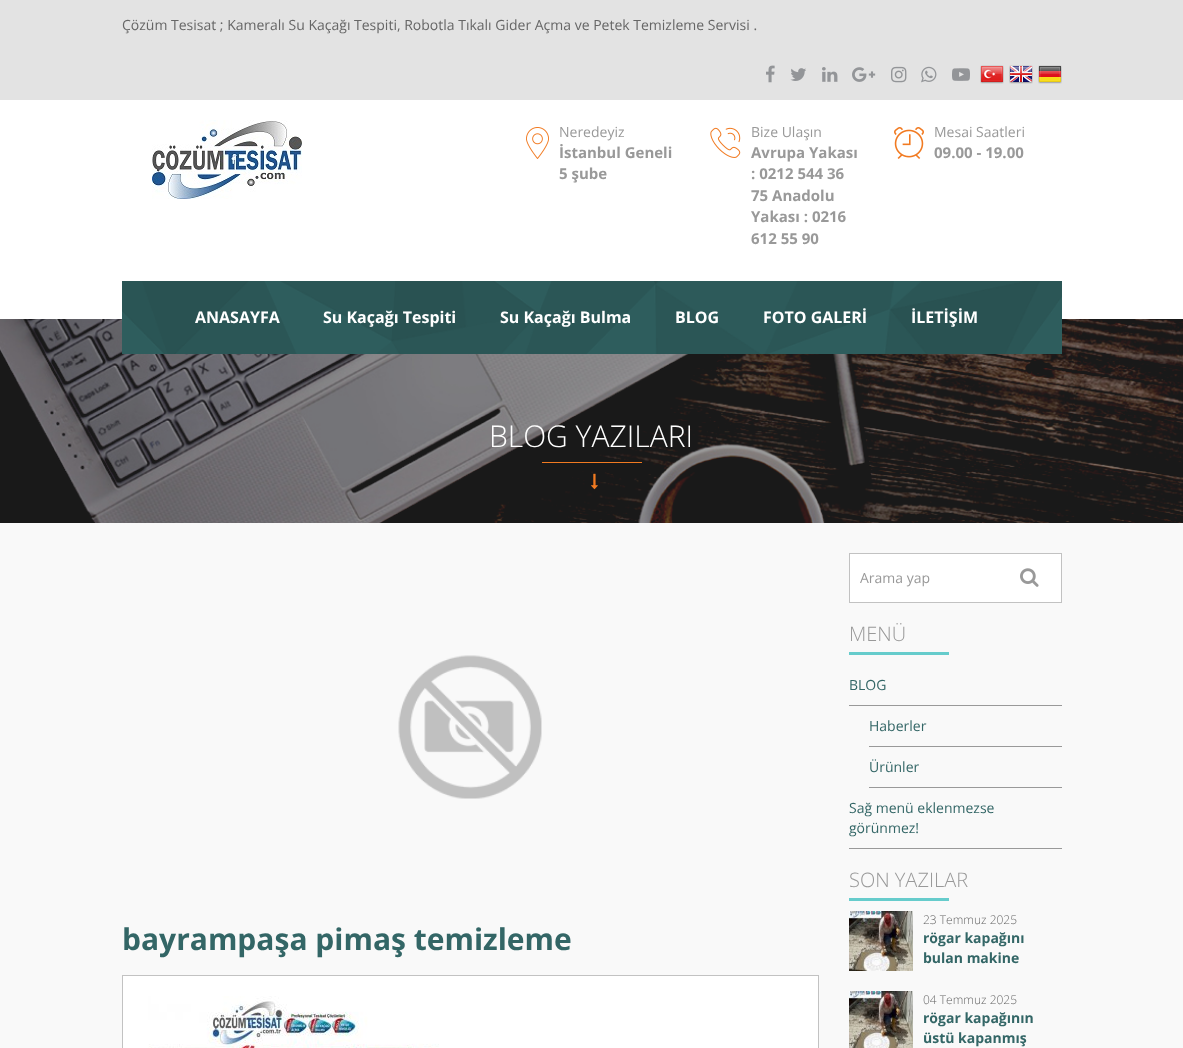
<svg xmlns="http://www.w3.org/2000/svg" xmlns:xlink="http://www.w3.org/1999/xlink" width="1183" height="1048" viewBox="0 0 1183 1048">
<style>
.cls-1{font:14px Open Sans;fill:#666666}
.cls-2{font:14px Open Sans;fill:#999999}
.cls-3{font:bold 15px Open Sans;fill:#999999}
.cls-4{font:bold 16px Open Sans;fill:#ffffff}
.cls-5{font:300 30px Open Sans;fill:#ffffff}
.cls-6{font:bold 30px Open Sans;fill:#336666}
.cls-7{font:300 20px Open Sans;fill:#999999}
.cls-8{font:14px Open Sans;fill:#336666}
.cls-9{font:300 12px Open Sans;fill:#666666}
.cls-10{font:bold 14px Open Sans;fill:#336666}
</style>
<rect width="100%" height="100%" fill="#f9f9f9"/>
<rect fill="#ffffff" x="0" y="100" width="1183" height="219"/>
<rect fill="#e3e3e3" x="0" y="0" width="1183" height="100"/>
<image xlink:href="image0.png" x="766" y="65" width="9" height="18"/>
<image xlink:href="image1.png" x="790" y="68" width="16" height="13"/>
<image xlink:href="image2.png" x="822" y="67" width="16" height="15"/>
<image xlink:href="image3.png" x="852" y="67" width="24" height="15"/>
<image xlink:href="image4.png" x="891" y="66" width="16" height="17"/>
<image xlink:href="image5.png" x="921" y="66" width="16" height="17"/>
<image xlink:href="image6.png" x="952" y="68" width="18" height="13"/>
<image xlink:href="image7.png" x="980" y="65" width="24" height="19"/>
<image xlink:href="image8.png" x="1009" y="65" width="24" height="19"/>
<image xlink:href="image9.png" x="1038" y="65" width="24" height="19"/>
<image xlink:href="image10.png" x="152" y="120" width="150" height="79"/>
<image xlink:href="image11.png" x="526" y="127" width="23" height="32"/>
<image xlink:href="image12.png" x="710" y="127" width="31" height="31"/>
<image xlink:href="image13.png" x="894" y="127" width="30" height="32"/>
<image xlink:href="image15.png" x="0" y="319" width="1183" height="204"/>
<image xlink:href="image14.png" x="122" y="281" width="940" height="73"/>
<rect fill="#f17a21" x="542" y="462" width="100" height="1"/>
<image xlink:href="image16.png" x="591" y="473" width="7" height="17"/>
<image xlink:href="image17.png" x="398" y="655" width="144" height="144"/>
<rect fill="#ffffff" stroke="#c2c2c2" x="122.5" y="975.5" width="696" height="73"/>
<image xlink:href="image18.png" x="148" y="996" width="291" height="52"/>
<rect fill="#ffffff" stroke="#c2c2c2" x="849.5" y="553.5" width="212" height="49"/>
<image xlink:href="image19.png" x="1020" y="568" width="19" height="19"/>
<rect fill="#66cccc" x="849" y="652" width="100" height="3"/>
<rect fill="#999999" x="849" y="705" width="213" height="1"/>
<rect fill="#999999" x="869" y="746" width="193" height="1"/>
<rect fill="#999999" x="869" y="787" width="193" height="1"/>
<rect fill="#999999" x="849" y="848" width="213" height="1"/>
<rect fill="#66cccc" x="849" y="898" width="100" height="3"/>
<image xlink:href="image20.png" x="849" y="911" width="64" height="60"/>
<image xlink:href="image21.png" x="849" y="991" width="64" height="57"/>
<text class="cls-1" x="122" y="30">Çözüm Tesisat ; Kameralı Su Kaçağı Tespiti, Robotla Tıkalı Gider Açma ve Petek Temizleme Servisi .</text>
<text class="cls-2" x="559" y="137">Neredeyiz</text>
<text class="cls-3"><tspan x="559" y="158">İstanbul Geneli</tspan><tspan x="559" y="179">5 şube</tspan></text>
<text class="cls-2" x="751" y="137">Bize Ulaşın</text>
<text class="cls-3"><tspan x="751" y="158">Avrupa Yakası</tspan><tspan x="751" y="179">: 0212 544 36</tspan><tspan x="751" y="201">75 Anadolu</tspan><tspan x="751" y="222">Yakası : 0216</tspan><tspan x="751" y="244">612 55 90</tspan></text>
<text class="cls-2" x="934" y="137">Mesai Saatleri</text>
<text class="cls-3" x="934" y="158">09.00 - 19.00</text>
<text class="cls-4" x="195" y="323">ANASAYFA</text>
<text class="cls-4" x="323" y="323">Su Kaçağı Tespiti</text>
<text class="cls-4" x="500" y="323">Su Kaçağı Bulma</text>
<text class="cls-4" x="675" y="323">BLOG</text>
<text class="cls-4" x="763" y="323">FOTO GALERİ</text>
<text class="cls-4" x="911" y="323">İLETİŞİM</text>
<text class="cls-5" x="489" y="447">BLOG YAZILARI</text>
<text class="cls-6" x="122" y="950">bayrampaşa pimaş temizleme</text>
<text class="cls-2" x="860" y="583">Arama yap</text>
<text class="cls-7" x="849" y="641">MENÜ</text>
<text class="cls-8" x="849" y="690">BLOG</text>
<text class="cls-8" x="869" y="731">Haberler</text>
<text class="cls-8" x="869" y="772">Ürünler</text>
<text class="cls-8"><tspan x="849" y="813">Sağ menü eklenmezse</tspan><tspan x="849" y="833">görünmez!</tspan></text>
<text class="cls-7" x="849" y="887">SON YAZILAR</text>
<text class="cls-9" x="923" y="924">23 Temmuz 2025</text>
<text class="cls-10"><tspan x="923" y="943">rögar kapağını</tspan><tspan x="923" y="963">bulan makine</tspan></text>
<text class="cls-9" x="923" y="1004">04 Temmuz 2025</text>
<text class="cls-10"><tspan x="923" y="1023">rögar kapağının</tspan><tspan x="923" y="1043">üstü kapanmış</tspan></text>
</svg>
